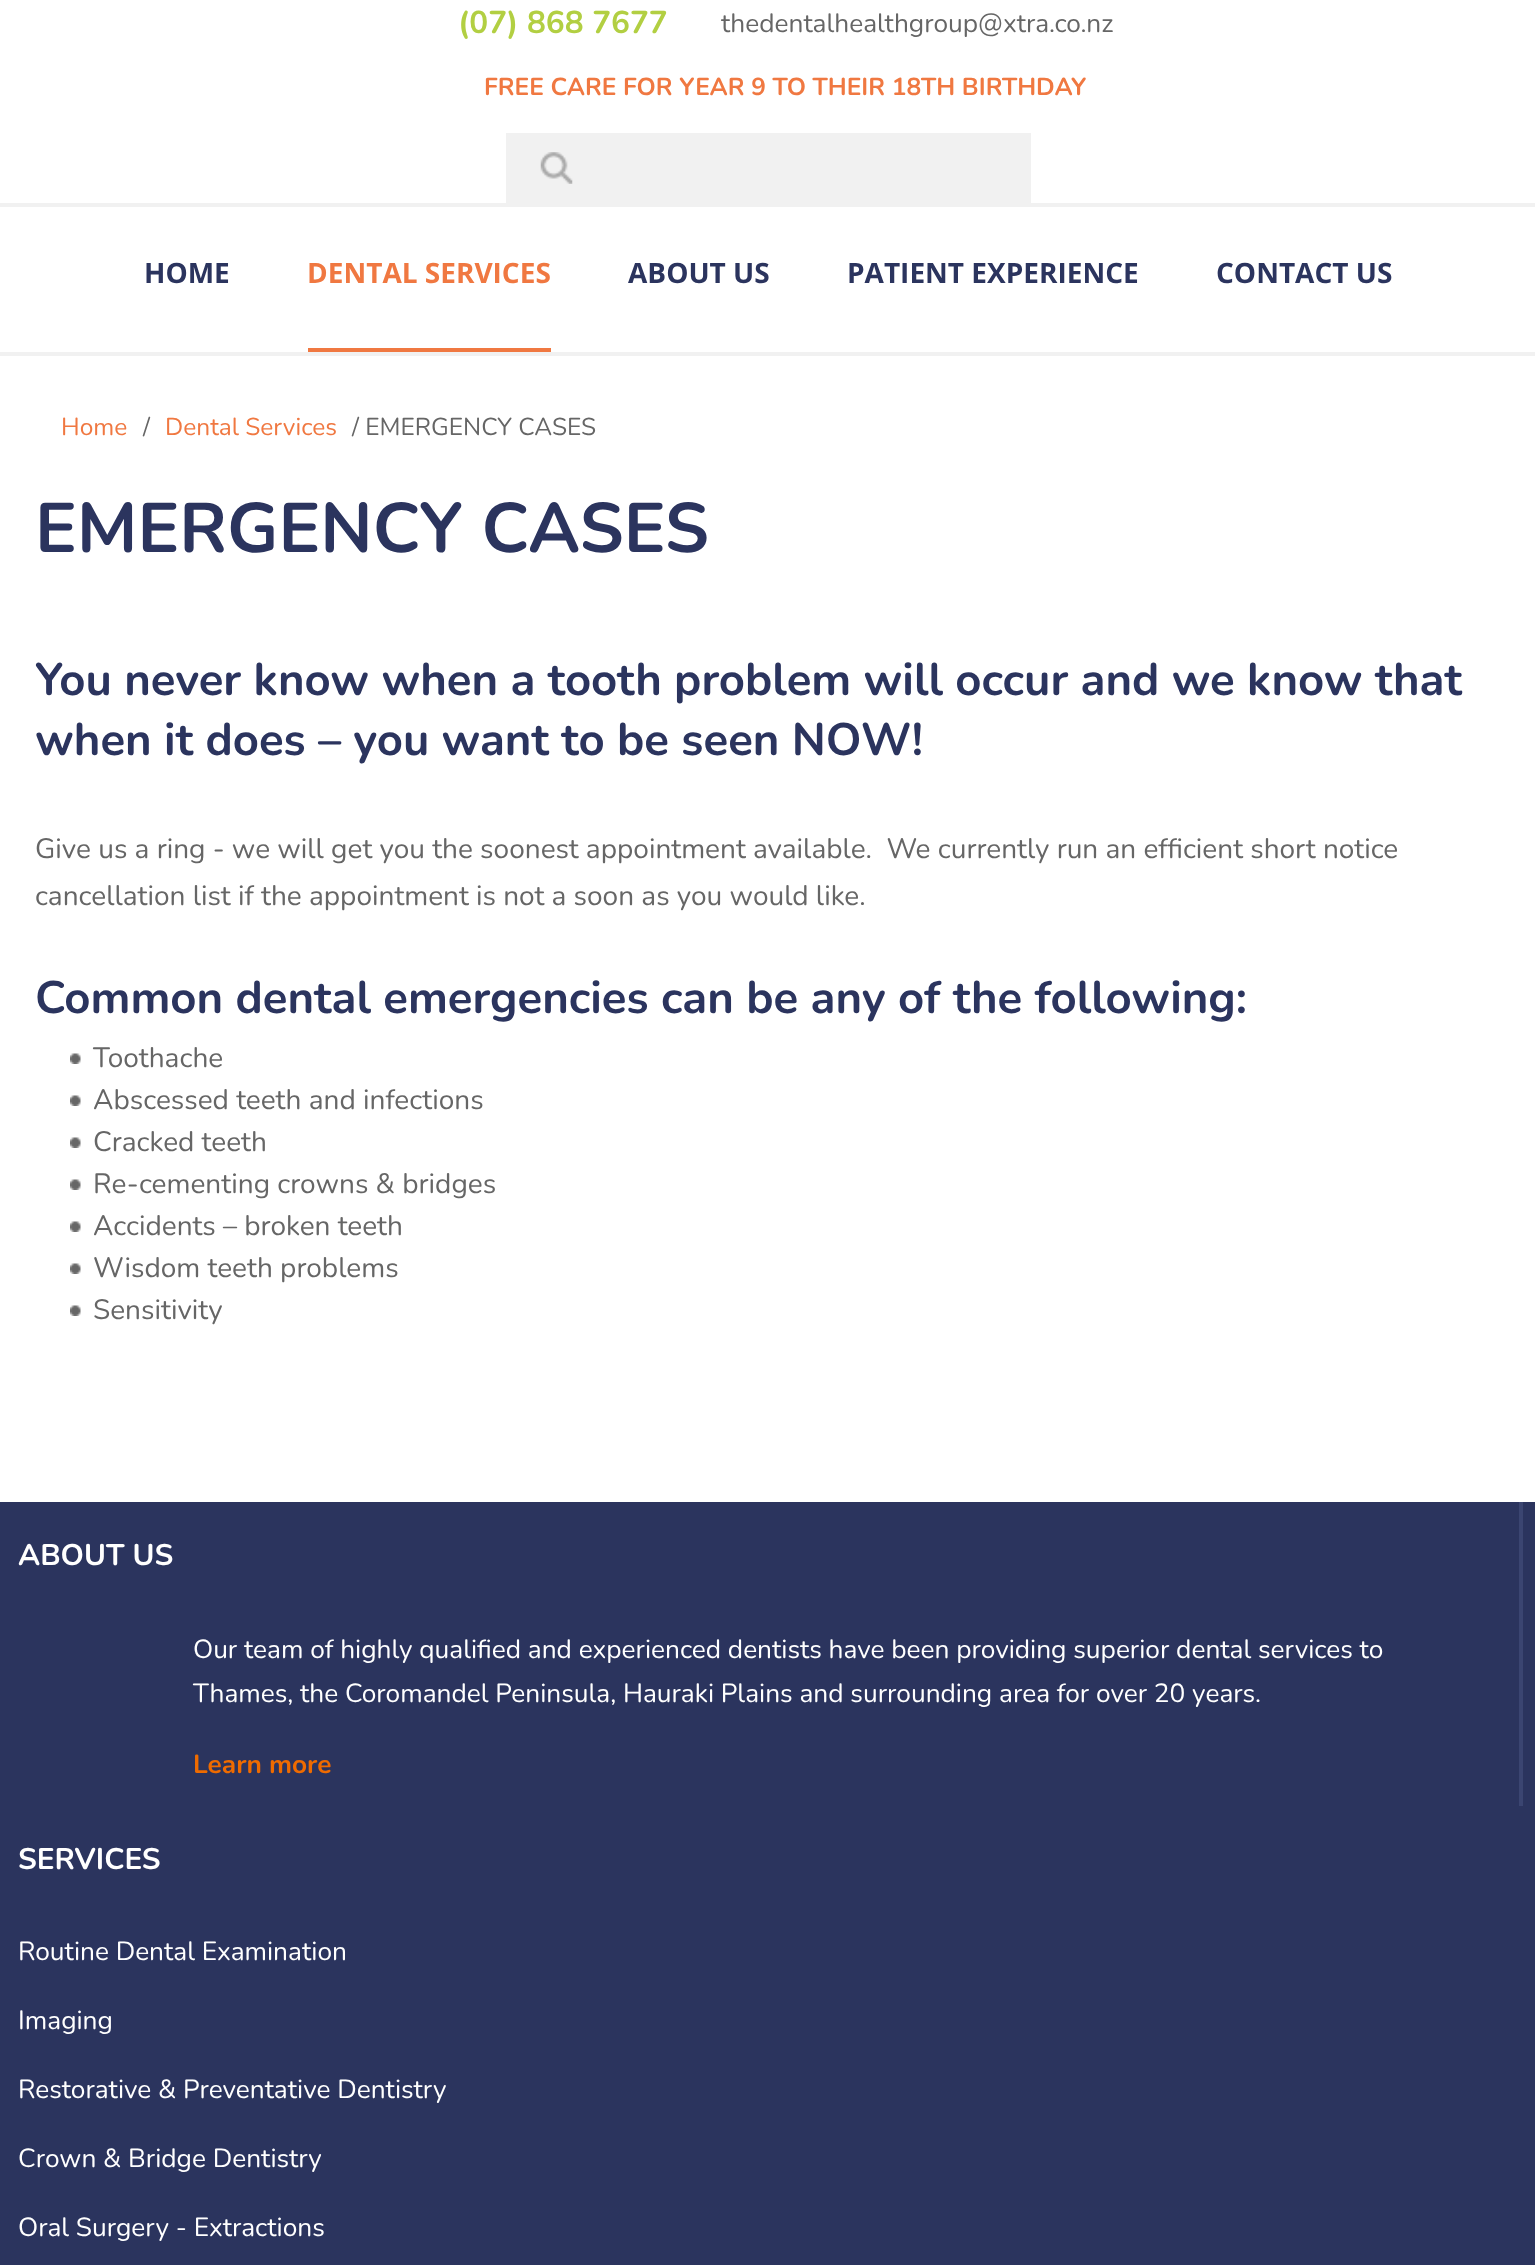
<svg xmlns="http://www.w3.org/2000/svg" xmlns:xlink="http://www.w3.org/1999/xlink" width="1535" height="2265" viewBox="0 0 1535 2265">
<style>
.cls-1{font:bold 31.5px Nunito;fill:#b2cf42}
.cls-2{font:26.25px Nunito;fill:#666666}
.cls-3{font:bold 24.5px Nunito;fill:#f07841}
.cls-4{font:bold 28px Open Sans;fill:#2b345e}
.cls-5{font:bold 28px Open Sans;fill:#f07841}
.cls-6{font:24.5px Nunito;fill:#f07841}
.cls-7{font:24.5px Nunito;fill:#666666}
.cls-8{font:bold 70px Nunito;fill:#2b345e}
.cls-9{font:bold 45.5px Nunito;fill:#2b345e}
.cls-10{font:28px Nunito;fill:#666666}
.cls-11{font:bold 29.75px Nunito;fill:#ffffff}
.cls-12{font:26.25px Nunito;fill:#ffffff}
.cls-13{font:bold 26.25px Nunito;fill:#ef6b00}
</style>
<rect width="100%" height="100%" fill="#ffffff"/>
<rect fill="#f1f1f1" x="0" y="352" width="1535" height="4"/>
<rect fill="#f1f1f1" x="0" y="203" width="1535" height="4"/>
<rect fill="#f1f1f1" x="506" y="133" width="525" height="70"/>
<image xlink:href="image0.png" x="540" y="152" width="33" height="32"/>
<rect fill="#f07841" x="308" y="348" width="243" height="4"/>
<image xlink:href="image1.png" x="70" y="1053" width="11" height="11"/>
<image xlink:href="image1.png" x="70" y="1095" width="11" height="11"/>
<image xlink:href="image1.png" x="70" y="1137" width="11" height="11"/>
<image xlink:href="image1.png" x="70" y="1179" width="11" height="11"/>
<image xlink:href="image1.png" x="70" y="1221" width="11" height="11"/>
<image xlink:href="image1.png" x="70" y="1263" width="11" height="11"/>
<image xlink:href="image1.png" x="70" y="1305" width="11" height="11"/>
<rect fill="#2b345e" x="0" y="1502" width="1535" height="763"/>
<rect fill="#3b4571" x="1519" y="1502" width="4" height="304"/>
<text class="cls-1" x="458" y="33">(07) 868 7677</text>
<text class="cls-2" x="721" y="32">thedentalhealthgroup@xtra.co.nz</text>
<text class="cls-3" x="484" y="95">FREE CARE FOR YEAR 9 TO THEIR 18TH BIRTHDAY</text>
<text class="cls-4" x="144" y="283">HOME</text>
<text class="cls-5" x="307" y="283">DENTAL SERVICES</text>
<text class="cls-4" x="628" y="283">ABOUT US</text>
<text class="cls-4" x="847" y="283">PATIENT EXPERIENCE</text>
<text class="cls-4" x="1216" y="283">CONTACT US</text>
<text class="cls-6" x="61" y="435">Home</text>
<text class="cls-7" x="143" y="435">/</text>
<text class="cls-6" x="165" y="435">Dental Services</text>
<text class="cls-7" x="352" y="435">/ EMERGENCY CASES</text>
<text class="cls-8" x="35" y="552">EMERGENCY CASES</text>
<text class="cls-9"><tspan x="35" y="695">You never know when a tooth problem will occur and we know that</tspan><tspan x="35" y="755">when it does – you want to be seen NOW!</tspan></text>
<text class="cls-10" xml:space="preserve"><tspan x="35" y="858">Give us a ring - we will get you the soonest appointment available.  We currently run an efficient short notice</tspan><tspan x="35" y="905">cancellation list if the appointment is not a soon as you would like.</tspan></text>
<text class="cls-9" x="35" y="1013">Common dental emergencies can be any of the following:</text>
<text class="cls-10"><tspan x="93" y="1067">Toothache</tspan><tspan x="93" y="1109">Abscessed teeth and infections</tspan><tspan x="93" y="1151">Cracked teeth</tspan><tspan x="93" y="1193">Re-cementing crowns &amp; bridges</tspan><tspan x="93" y="1235">Accidents – broken teeth</tspan><tspan x="93" y="1277">Wisdom teeth problems</tspan><tspan x="93" y="1319">Sensitivity</tspan></text>
<text class="cls-11" x="18" y="1565">ABOUT US</text>
<text class="cls-12"><tspan x="193" y="1658">Our team of highly qualified and experienced dentists have been providing superior dental services to</tspan><tspan x="193" y="1702">Thames, the Coromandel Peninsula, Hauraki Plains and surrounding area for over 20 years.</tspan></text>
<text class="cls-13" x="193" y="1773">Learn more</text>
<text class="cls-11" x="18" y="1869">SERVICES</text>
<text class="cls-12" x="18" y="1960">Routine Dental Examination</text>
<text class="cls-12" x="18" y="2029">Imaging</text>
<text class="cls-12" x="18" y="2098">Restorative &amp; Preventative Dentistry</text>
<text class="cls-12" x="18" y="2167">Crown &amp; Bridge Dentistry</text>
<text class="cls-12" x="18" y="2236">Oral Surgery - Extractions</text>
</svg>
